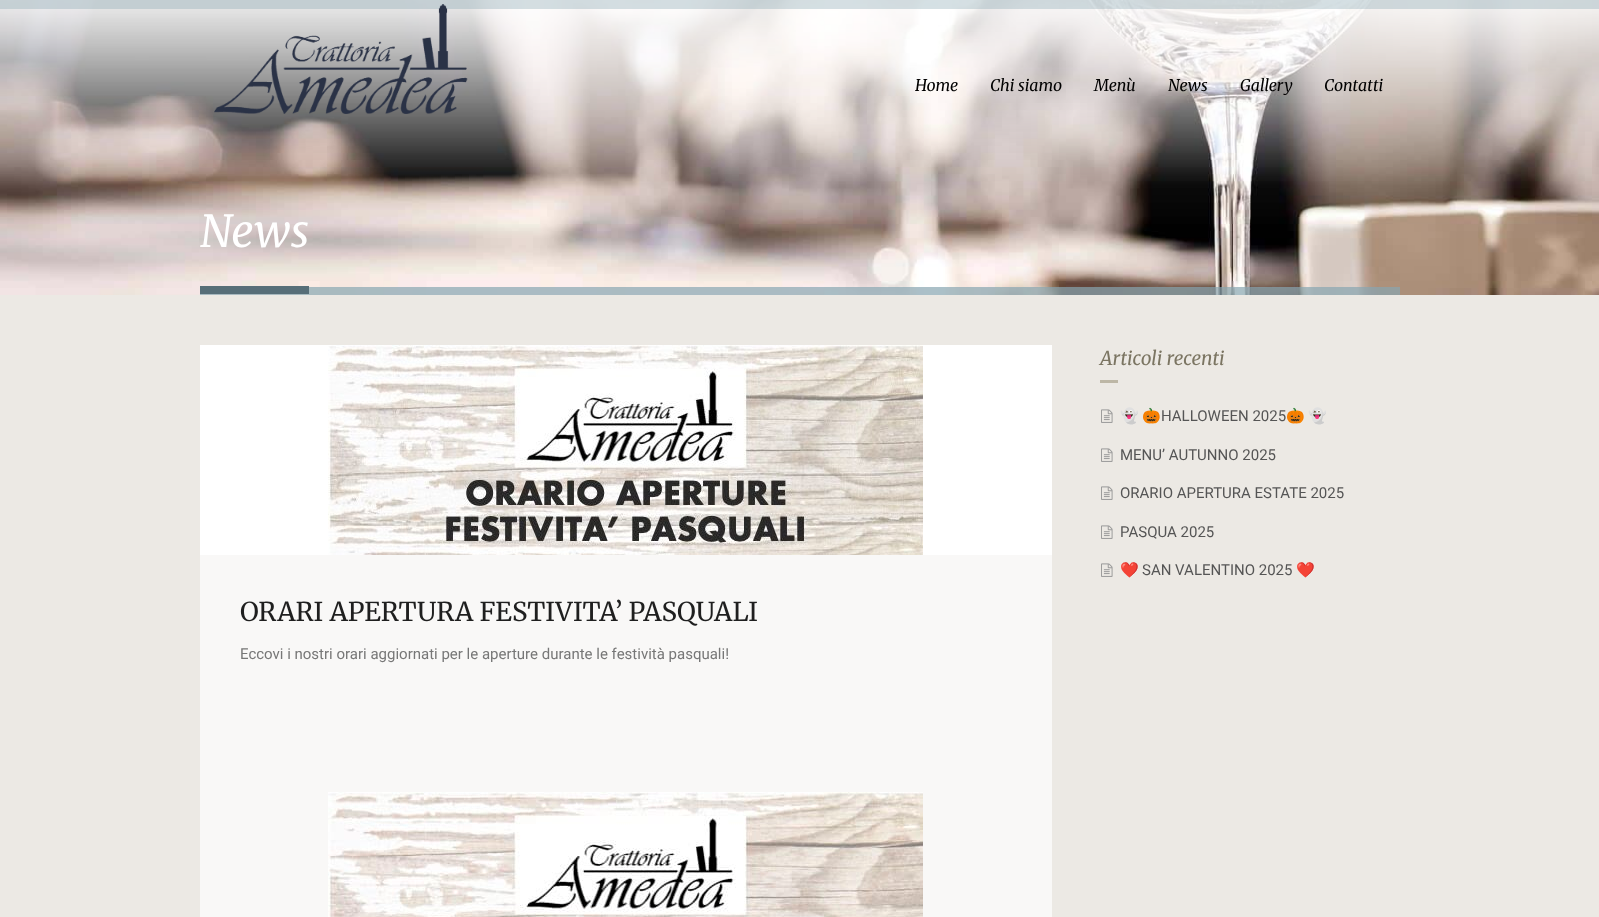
<svg xmlns="http://www.w3.org/2000/svg" xmlns:xlink="http://www.w3.org/1999/xlink" width="1599" height="917" viewBox="0 0 1599 917">
<style>
.cls-1{font:italic 16px Merriweather;fill:#000000}
.cls-2{font:italic 44px Merriweather;fill:#ffffff}
.cls-3{font:italic 19px Merriweather;fill:#7b7562}
.cls-4{font:15px Noto Color Emoji;fill:#555555}
.cls-5{font:15px Roboto;fill:#555555}
.cls-6{font:26px Merriweather;fill:#1f1f1f}
.cls-7{font:15px Roboto;fill:#777777}
</style>
<rect width="100%" height="100%" fill="#ece9e4"/>
<image xlink:href="image1.png" x="0" y="0" width="1599" height="295"/>
<rect fill="#88a5b1" fill-opacity="0.35" x="0" y="0" width="1599" height="9"/>
<image xlink:href="image0.png" x="214" y="4" width="254" height="110"/>
<rect fill="#88a5b1" fill-opacity="0.7" x="200" y="287" width="1200" height="8"/>
<rect fill="#576e78" x="200" y="286" width="109" height="8"/>
<rect fill="#bdb7a6" x="1100" y="380" width="18" height="3"/>
<image xlink:href="image2.png" x="1101" y="409" width="12" height="14"/>
<image xlink:href="image2.png" x="1101" y="448" width="12" height="14"/>
<image xlink:href="image2.png" x="1101" y="486" width="12" height="14"/>
<image xlink:href="image2.png" x="1101" y="525" width="12" height="14"/>
<image xlink:href="image2.png" x="1101" y="563" width="12" height="14"/>
<rect fill="#ffffff" x="200" y="345" width="852" height="210"/>
<image xlink:href="image3.png" x="328" y="345" width="595" height="210"/>
<rect fill="#f9f8f7" x="200" y="555" width="852" height="362"/>
<image xlink:href="image4.png" x="328" y="792" width="595" height="125"/>
<text class="cls-1" x="915" y="91">Home</text>
<text class="cls-1" x="990" y="91">Chi siamo</text>
<text class="cls-1" x="1094" y="91">Menù</text>
<text class="cls-1" x="1168" y="91">News</text>
<text class="cls-1" x="1240" y="91">Gallery</text>
<text class="cls-1" x="1324" y="91">Contatti</text>
<text class="cls-2" x="200" y="247">News</text>
<text class="cls-3" x="1100" y="365">Articoli recenti</text>
<text class="cls-4" x="1120" y="421">👻</text>
<text class="cls-4" x="1142" y="421">🎃</text>
<text class="cls-5" x="1161" y="421">HALLOWEEN 2025</text>
<text class="cls-4" x="1286" y="421">🎃</text>
<text class="cls-4" x="1308" y="421">👻</text>
<text class="cls-5" x="1120" y="460">MENU’ AUTUNNO 2025</text>
<text class="cls-5" x="1120" y="498">ORARIO APERTURA ESTATE 2025</text>
<text class="cls-5" x="1120" y="537">PASQUA 2025</text>
<text class="cls-4" x="1120" y="575">❤️</text>
<text class="cls-5" x="1142" y="575">SAN VALENTINO 2025</text>
<text class="cls-4" x="1296" y="575">❤️</text>
<text class="cls-6" x="240" y="621">ORARI APERTURA FESTIVITA’ PASQUALI</text>
<text class="cls-7" x="240" y="659">Eccovi i nostri orari aggiornati per le aperture durante le festività pasquali!</text>
</svg>
